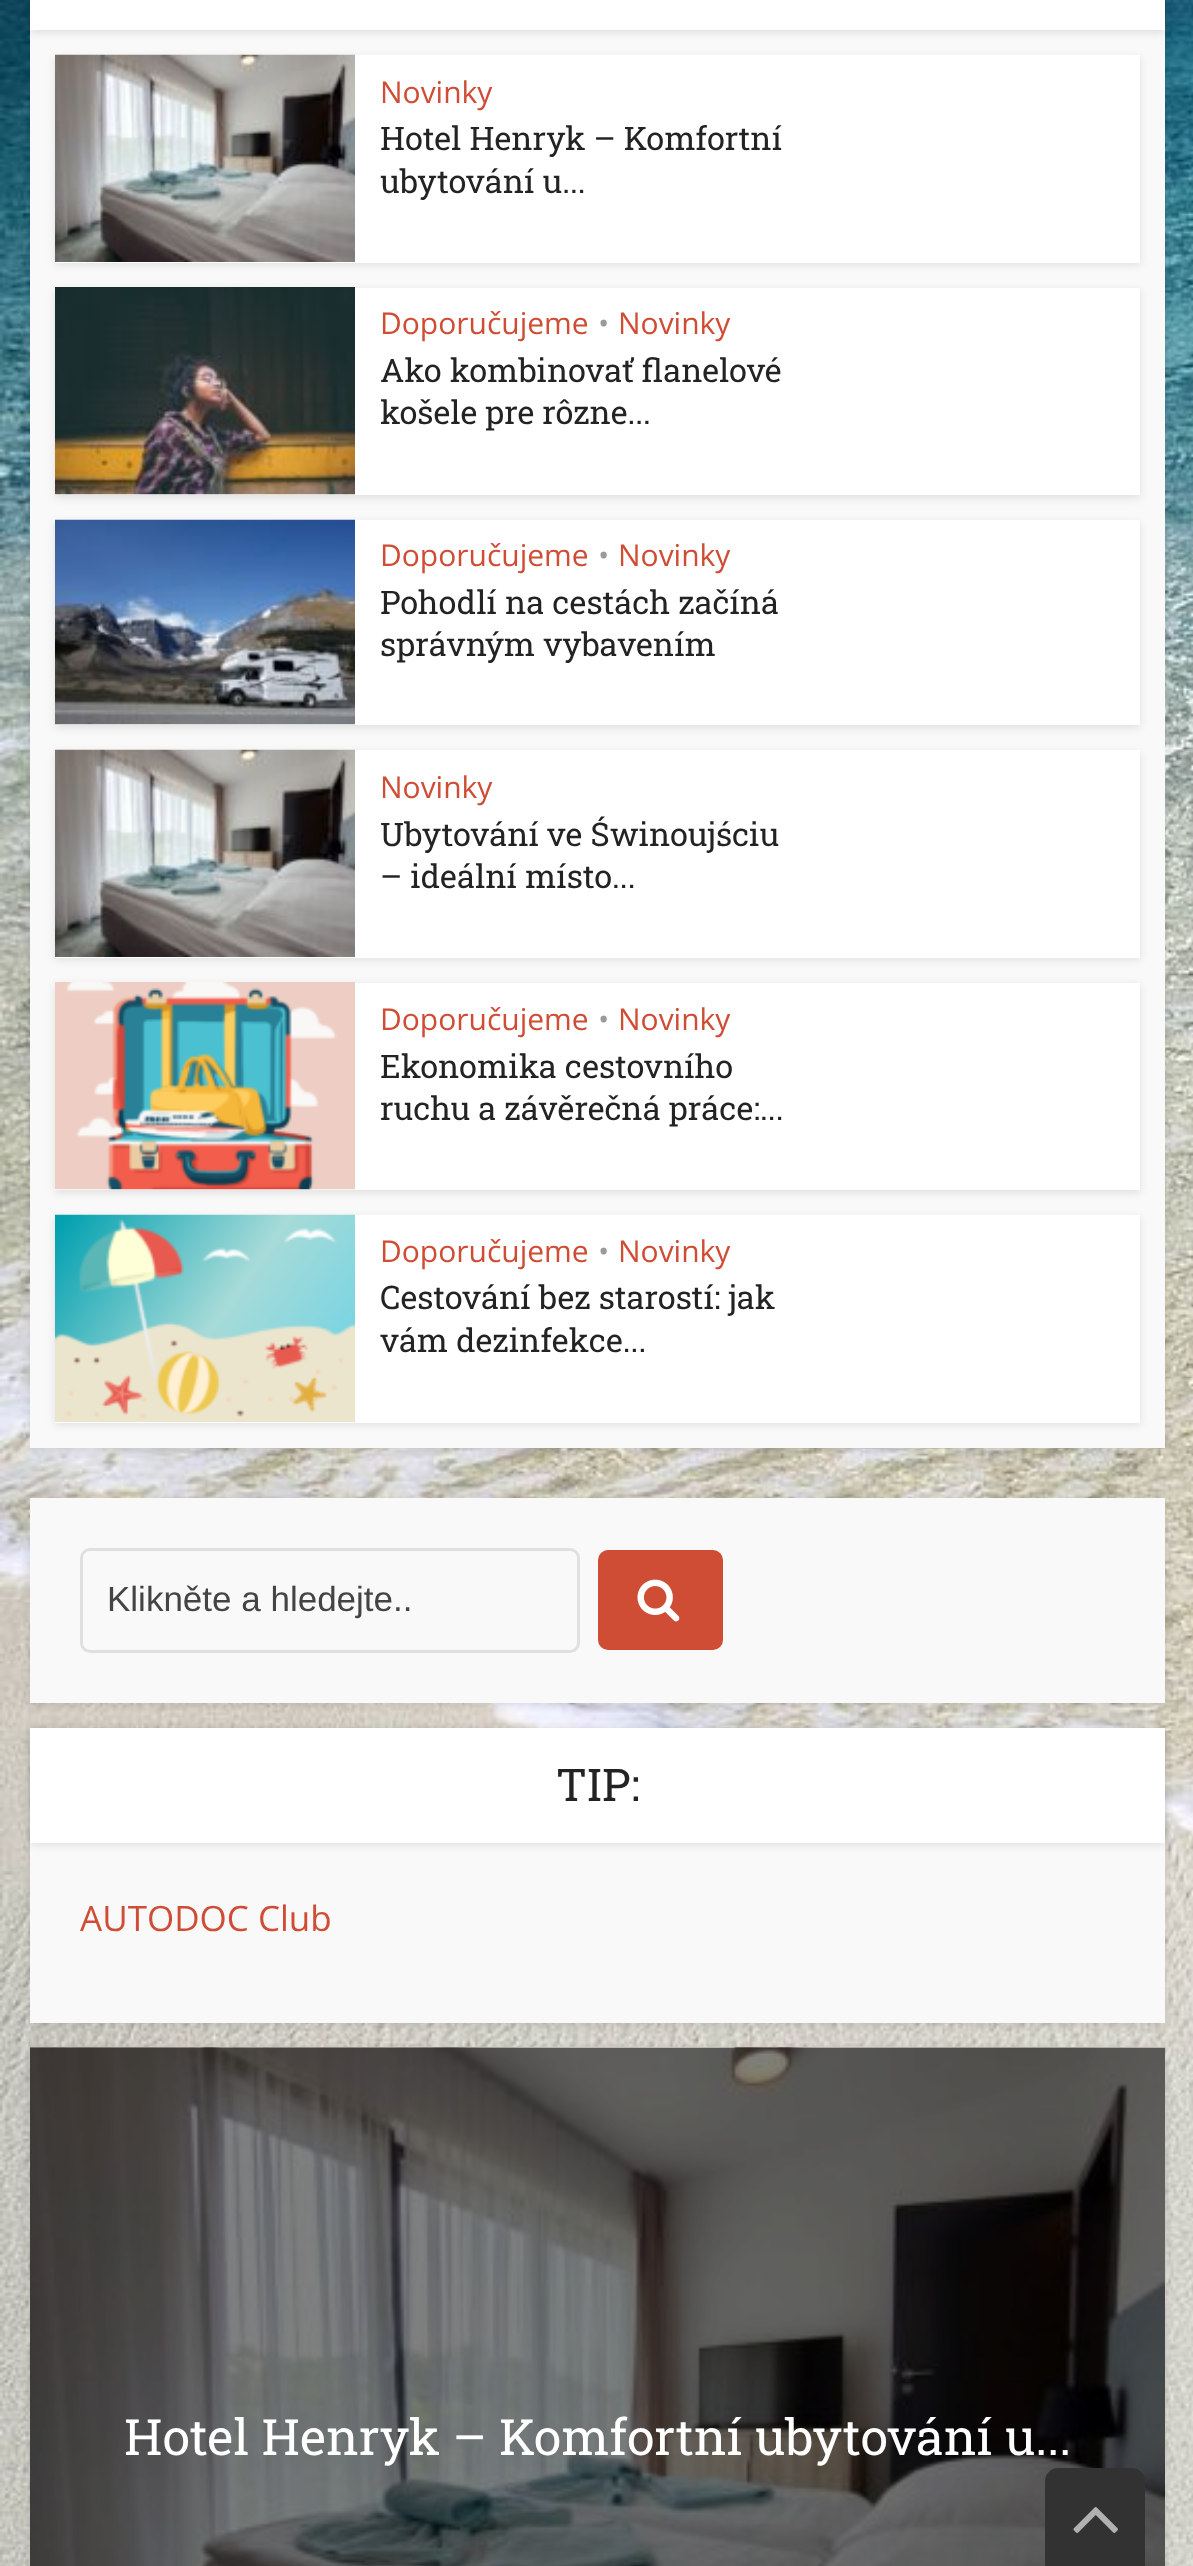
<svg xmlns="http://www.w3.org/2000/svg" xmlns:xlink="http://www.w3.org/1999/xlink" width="1193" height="2566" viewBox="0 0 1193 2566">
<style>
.cls-1{font:30px Open Sans;fill:#cf4d35}
.cls-2{font:32.5px Roboto Slab;fill:#232323}
.cls-3{font:30px Open Sans;fill:#9b9b9b}
.cls-4{font:35px Liberation Sans;fill:#444444}
.cls-5{font:45px Roboto Slab;fill:#232323}
.cls-6{font:35px Open Sans;fill:#cf4d35}
.cls-7{font:50px Roboto Slab;fill:#ffffff}
</style>
<rect width="100%" height="100%" fill="#ffffff"/>
<image xlink:href="image0.png" x="0" y="0" width="1193" height="2566"/>
<rect fill="#000000" fill-opacity="0.1" filter="blur(4px)" x="30" y="-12" width="1135" height="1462"/>
<rect fill="#f9f9f9" x="30" y="30" width="1135" height="1418"/>
<rect fill="#000000" fill-opacity="0.1" filter="blur(4px)" x="30" y="-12" width="1135" height="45"/>
<rect fill="#ffffff" x="30" y="0" width="1135" height="30"/>
<rect fill="#000000" fill-opacity="0.1" filter="blur(4px)" x="55" y="58" width="1085" height="207"/>
<rect fill="#ffffff" x="55" y="55" width="1085" height="208"/>
<image xlink:href="image1.png" x="55" y="54" width="300" height="208"/>
<rect fill="#000000" fill-opacity="0.1" filter="blur(4px)" x="55" y="290" width="1085" height="208"/>
<rect fill="#ffffff" x="55" y="288" width="1085" height="207"/>
<image xlink:href="image2.png" x="55" y="287" width="300" height="208"/>
<rect fill="#000000" fill-opacity="0.1" filter="blur(4px)" x="55" y="523" width="1085" height="205"/>
<rect fill="#ffffff" x="55" y="520" width="1085" height="205"/>
<image xlink:href="image3.png" x="55" y="519" width="300" height="206"/>
<rect fill="#000000" fill-opacity="0.1" filter="blur(4px)" x="55" y="753" width="1085" height="207"/>
<rect fill="#ffffff" x="55" y="750" width="1085" height="208"/>
<image xlink:href="image4.png" x="55" y="749" width="300" height="208"/>
<rect fill="#000000" fill-opacity="0.1" filter="blur(4px)" x="55" y="985" width="1085" height="208"/>
<rect fill="#ffffff" x="55" y="983" width="1085" height="207"/>
<image xlink:href="image5.png" x="55" y="982" width="300" height="208"/>
<rect fill="#000000" fill-opacity="0.1" filter="blur(4px)" x="55" y="1218" width="1085" height="207"/>
<rect fill="#ffffff" x="55" y="1215" width="1085" height="208"/>
<image xlink:href="image6.png" x="55" y="1214" width="300" height="208"/>
<rect fill="#000000" fill-opacity="0.1" filter="blur(4px)" x="30" y="1500" width="1135" height="205"/>
<rect fill="#f9f9f9" x="30" y="1498" width="1135" height="205"/>
<rect fill="none" stroke="#e0e0e0" stroke-width="3" x="81.5" y="1549.5" width="497" height="102" rx="8.5"/>
<rect fill="#cf4d35" x="598" y="1550" width="125" height="100" rx="10"/>
<image xlink:href="image7.png" x="637" y="1579" width="43" height="43"/>
<rect fill="#000000" fill-opacity="0.1" filter="blur(4px)" x="30" y="1730" width="1135" height="295"/>
<rect fill="#f9f9f9" x="30" y="1843" width="1135" height="180"/>
<rect fill="#000000" fill-opacity="0.1" filter="blur(4px)" x="30" y="1730" width="1135" height="115"/>
<rect fill="#ffffff" x="30" y="1728" width="1135" height="115"/>
<rect fill="#000000" fill-opacity="0.1" filter="blur(4px)" x="30" y="2050" width="1135" height="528"/>
<image xlink:href="image8.png" x="30" y="2047" width="1135" height="519"/>
<path fill="#323232" d="M1058 2468H1132C1139 2468 1145 2474 1145 2481V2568H1045V2481C1045 2474 1051 2468 1058 2468Z"/>
<image xlink:href="image9.png" x="1073" y="2507" width="45" height="26"/>
<text class="cls-1" x="380" y="103">Novinky</text>
<text class="cls-2"><tspan x="380" y="150">Hotel Henryk – Komfortní</tspan><tspan x="380" y="193">ubytování u...</tspan></text>
<text class="cls-1" x="380" y="334">Doporučujeme</text>
<text class="cls-3" x="598" y="334">•</text>
<text class="cls-1" x="618" y="334">Novinky</text>
<text class="cls-2"><tspan x="380" y="382">Ako kombinovať flanelové</tspan><tspan x="380" y="424">košele pre rôzne...</tspan></text>
<text class="cls-1" x="380" y="566">Doporučujeme</text>
<text class="cls-3" x="598" y="566">•</text>
<text class="cls-1" x="618" y="566">Novinky</text>
<text class="cls-2"><tspan x="380" y="614">Pohodlí na cestách začíná</tspan><tspan x="380" y="656">správným vybavením</tspan></text>
<text class="cls-1" x="380" y="798">Novinky</text>
<text class="cls-2"><tspan x="380" y="846">Ubytování ve Świnoujściu</tspan><tspan x="380" y="888">– ideální místo...</tspan></text>
<text class="cls-1" x="380" y="1030">Doporučujeme</text>
<text class="cls-3" x="598" y="1030">•</text>
<text class="cls-1" x="618" y="1030">Novinky</text>
<text class="cls-2"><tspan x="380" y="1078">Ekonomika cestovního</tspan><tspan x="380" y="1120">ruchu a závěrečná práce:...</tspan></text>
<text class="cls-1" x="380" y="1262">Doporučujeme</text>
<text class="cls-3" x="598" y="1262">•</text>
<text class="cls-1" x="618" y="1262">Novinky</text>
<text class="cls-2"><tspan x="380" y="1309">Cestování bez starostí: jak</tspan><tspan x="380" y="1352">vám dezinfekce...</tspan></text>
<text class="cls-4" x="107" y="1611">Klikněte a hledejte..</text>
<text class="cls-5" x="556" y="1801">TIP:</text>
<text class="cls-6" x="80" y="1931">AUTODOC Club</text>
<text class="cls-7" x="124" y="2455">Hotel Henryk – Komfortní ubytování u...</text>
</svg>
